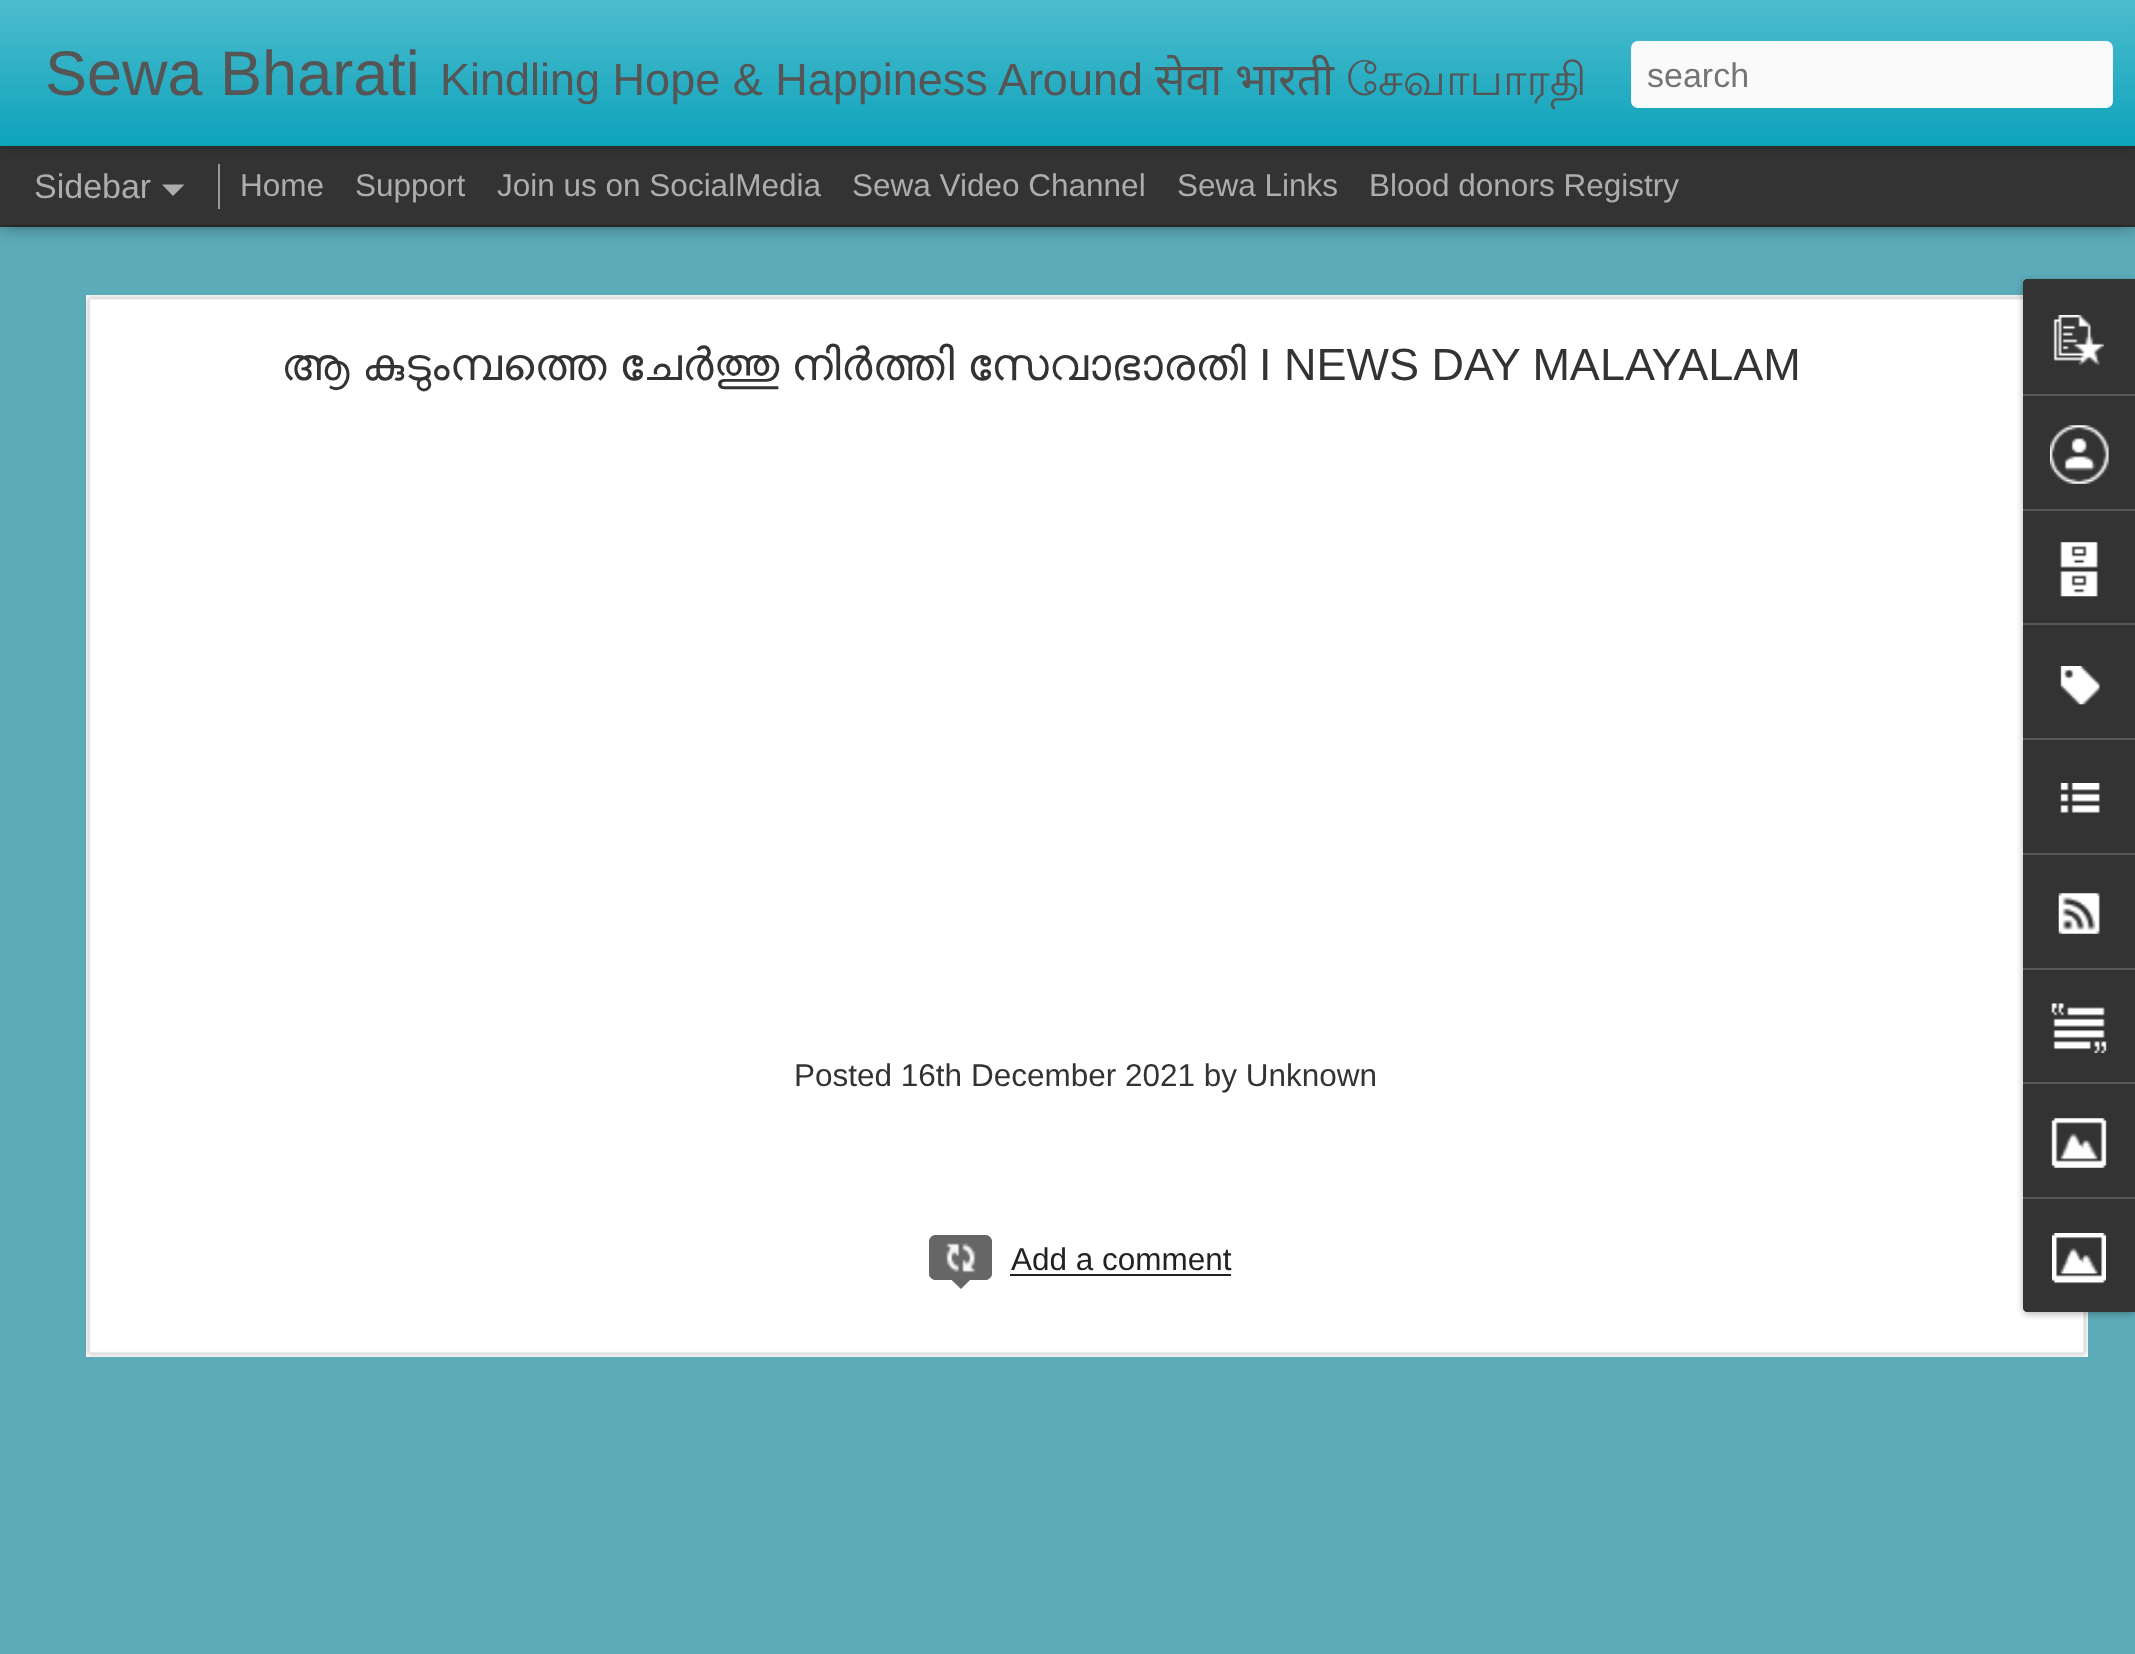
<svg xmlns="http://www.w3.org/2000/svg" xmlns:xlink="http://www.w3.org/1999/xlink" width="2135" height="1654" viewBox="0 0 2135 1654">
<style>
.cls-1{font:63px Liberation Sans;fill:#555555}
.cls-2{font:45px Liberation Sans;fill:#555555}
.cls-3{font:45px Noto Sans;fill:#555555}
.cls-4{font:45px Lohit Tamil;fill:#555555}
.cls-5{font:34px Liberation Sans;fill:#757575}
.cls-6{font:34px Liberation Sans;fill:#adadad}
.cls-7{font:31.5px Liberation Sans;fill:#adadad}
.cls-8{font:45px FreeSans;fill:#333333}
.cls-9{font:45px Liberation Sans;fill:#333333}
.cls-10{font:31.5px Liberation Sans;fill:#333333}
.cls-11{font:31.5px Liberation Sans;fill:#222222}
</style>
<defs>
<linearGradient id="g1" gradientUnits="userSpaceOnUse" x1="0" y1="0" x2="0" y2="146"><stop offset="0" stop-color="#4dbccd"/><stop offset="1" stop-color="#0da3bc"/></linearGradient>
</defs>
<rect width="100%" height="100%" fill="#333333"/>
<rect fill="#5cabb8" x="0" y="227" width="2135" height="1427"/>
<rect fill="#000000" fill-opacity="0.5" filter="blur(9px)" x="0" y="146" width="2135" height="79"/>
<rect fill="#333333" x="0" y="146" width="2135" height="79"/>
<rect fill="#000000" fill-opacity="0.3" filter="blur(5.5px)" x="0" y="0" width="2135" height="146"/>
<rect fill="url(#g1)" x="0" y="0" width="2135" height="146"/>
<rect fill="#fafafa" x="1631" y="41" width="482" height="67" rx="7"/>
<path fill="#adadad" d="M162 184.5H184.5L173 196Z"/>
<rect fill="#999999" x="218" y="164" width="2" height="45"/>
<rect fill="#ffffff" x="86" y="295" width="2002" height="1062"/>
<image xlink:href="image0.png" x="85" y="295" width="2003" height="1062"/>
<rect fill="#666666" x="929" y="1235" width="63" height="45" rx="7"/>
<image xlink:href="image1.png" x="946" y="1243" width="30" height="30"/>
<rect fill="none" stroke="#666666" stroke-width="2" x="930" y="1236" width="61" height="43" rx="6"/>
<path fill="#666666" d="M949.5 1278H972L961 1289Z"/>
<rect fill="#222222" x="1010" y="1274" width="221" height="2"/>
<rect fill="#000000" fill-opacity="0.3" filter="blur(3.5px)" x="2023" y="281" width="112" height="1033" rx="5"/>
<path fill="#333333" d="M2028 279H2135V1312H2028C2025 1312 2023 1310 2023 1307V284C2023 281 2025 279 2028 279Z"/>
<path fill="#333333" d="M2028 279H2135V394H2023V284C2023 281 2025 279 2028 279Z"/>
<image xlink:href="image2.png" x="2053" y="315" width="51" height="50"/>
<rect fill="#585858" x="2023" y="394" width="112" height="2"/>
<image xlink:href="image3.png" x="2050" y="425" width="59" height="59"/>
<rect fill="#585858" x="2023" y="509" width="112" height="2"/>
<image xlink:href="image4.png" x="2059" y="542" width="39" height="55"/>
<rect fill="#585858" x="2023" y="623" width="112" height="2"/>
<image xlink:href="image5.png" x="2060" y="666" width="40" height="39"/>
<rect fill="#585858" x="2023" y="738" width="112" height="2"/>
<image xlink:href="image6.png" x="2060" y="783" width="40" height="30"/>
<rect fill="#585858" x="2023" y="853" width="112" height="2"/>
<image xlink:href="image7.png" x="2058" y="893" width="42" height="41"/>
<rect fill="#585858" x="2023" y="968" width="112" height="2"/>
<image xlink:href="image8.png" x="2051" y="1003" width="56" height="50"/>
<rect fill="#585858" x="2023" y="1082" width="112" height="2"/>
<image xlink:href="image9.png" x="2051" y="1118" width="56" height="50"/>
<path fill="#333333" d="M2023 1197H2135V1312H2028C2025 1312 2023 1310 2023 1307Z"/>
<rect fill="#585858" x="2023" y="1197" width="112" height="2"/>
<image xlink:href="image10.png" x="2052" y="1233" width="54" height="51"/>
<text class="cls-1" x="45" y="95">Sewa Bharati</text>
<text class="cls-2" x="440" y="95">Kindling Hope &amp; Happiness Around</text>
<text class="cls-3" x="1155" y="95">सेवा</text>
<text class="cls-3" x="1235" y="95">भारती</text>
<text class="cls-4" x="1346" y="95">சேவாபாரதி</text>
<text class="cls-5" x="1647" y="87">search</text>
<text class="cls-6" x="34" y="198">Sidebar</text>
<text class="cls-7" x="240" y="196">Home</text>
<text class="cls-7" x="355" y="196">Support</text>
<text class="cls-7" x="497" y="196">Join us on SocialMedia</text>
<text class="cls-7" x="852" y="196">Sewa Video Channel</text>
<text class="cls-7" x="1177" y="196">Sewa Links</text>
<text class="cls-7" x="1369" y="196">Blood donors Registry</text>
<text class="cls-8" x="281" y="380">ആ</text>
<text class="cls-8" x="362" y="380">കുടുംമ്പത്തെ</text>
<text class="cls-8" x="619" y="380">ചേർത്തു</text>
<text class="cls-8" x="791" y="380">നിർത്തി</text>
<text class="cls-8" x="967" y="380">സേവാഭാരതി</text>
<text class="cls-9" x="1259" y="380">I NEWS DAY MALAYALAM</text>
<text class="cls-10" x="794" y="1086">Posted 16th December 2021 by Unknown</text>
<text class="cls-11" x="1011" y="1270">Add a comment</text>
</svg>
